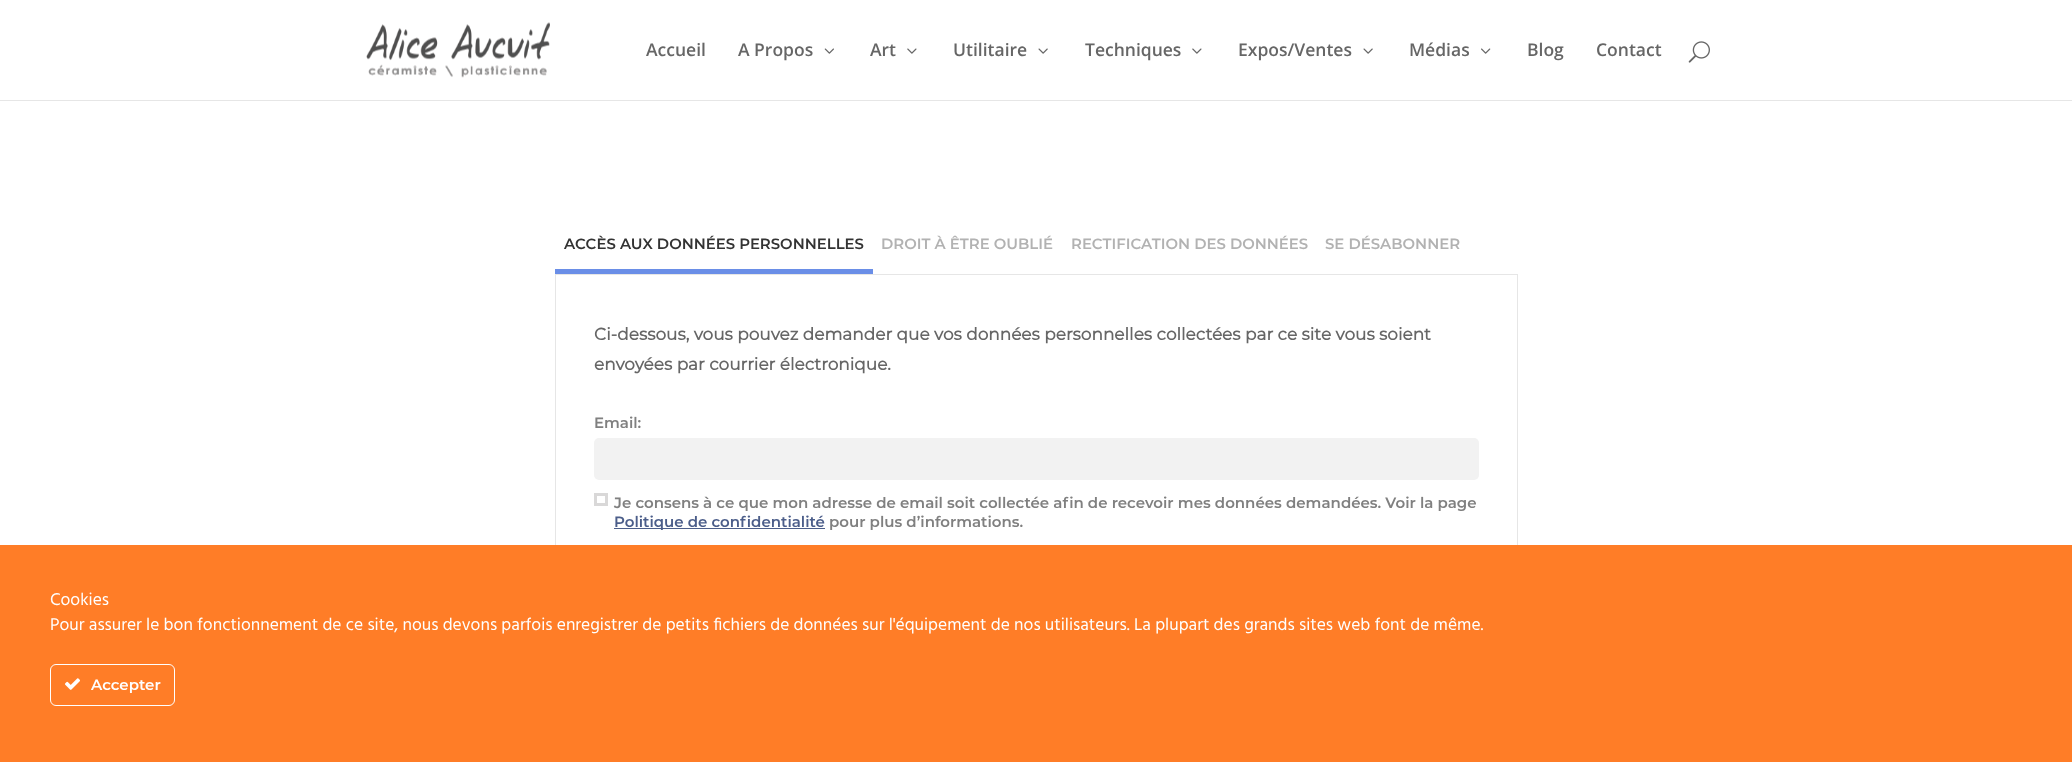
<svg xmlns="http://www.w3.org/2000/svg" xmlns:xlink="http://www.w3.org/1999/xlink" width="2072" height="762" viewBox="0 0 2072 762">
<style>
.cls-1{font:600 17.5px Open Sans;fill:#666666}
.cls-2{font:600 14.9px Montserrat;fill:#333333}
.cls-3{font:600 14.9px Montserrat;fill:#b2b2b2}
.cls-4{font:bold 16.9px Montserrat;fill:#666666}
.cls-5{font:600 15px Montserrat;fill:#808080}
.cls-6{font:600 15px Montserrat;fill:#4c5e8a}
.cls-7{font:17.5px Hind;fill:#ffffff}
.cls-8{font:600 15px Montserrat;fill:#ffffff}
</style>
<rect width="100%" height="100%" fill="#ffffff"/>
<path fill="#e6e6e6" d="M0 100V101H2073V1H2072V100Z"/>
<image xlink:href="image0.png" x="366" y="22" width="184" height="56"/>
<image xlink:href="image1.png" x="824" y="48" width="10" height="6"/>
<image xlink:href="image2.png" x="907" y="48" width="10" height="6"/>
<image xlink:href="image3.png" x="1038" y="48" width="10" height="6"/>
<image xlink:href="image2.png" x="1192" y="48" width="10" height="6"/>
<image xlink:href="image3.png" x="1363" y="48" width="10" height="6"/>
<image xlink:href="image4.png" x="1481" y="48" width="10" height="6"/>
<image xlink:href="image5.png" x="1688" y="41" width="22" height="22"/>
<rect fill="#6a8ee7" x="555" y="269" width="318" height="5"/>
<rect fill="none" stroke="#e6e6e6" x="555.5" y="274.5" width="962" height="369"/>
<rect fill="#f2f2f2" x="594" y="438" width="885" height="42" rx="5"/>
<rect fill="none" stroke="#d9d8d8" stroke-width="3" x="595.5" y="494.5" width="11" height="10"/>
<rect fill="#4c5e8a" x="614" y="528" width="211" height="1"/>
<rect fill="#ff7d27" x="0" y="545" width="2072" height="217"/>
<rect fill="none" stroke="#ffffff" x="50.5" y="664.5" width="124" height="41" rx="5.5"/>
<image xlink:href="image6.png" x="65" y="678" width="15" height="12"/>
<text class="cls-1" x="646" y="56">Accueil</text>
<text class="cls-1" x="738" y="56">A Propos</text>
<text class="cls-1" x="870" y="56">Art</text>
<text class="cls-1" x="953" y="56">Utilitaire</text>
<text class="cls-1" x="1085" y="56">Techniques</text>
<text class="cls-1" x="1238" y="56">Expos/Ventes</text>
<text class="cls-1" x="1409" y="56">Médias</text>
<text class="cls-1" x="1527" y="56">Blog</text>
<text class="cls-1" x="1596" y="56">Contact</text>
<text class="cls-2" x="564" y="249">ACCÈS AUX DONNÉES PERSONNELLES</text>
<text class="cls-3" x="881" y="249">DROIT À ÊTRE OUBLIÉ</text>
<text class="cls-3" x="1071" y="249">RECTIFICATION DES DONNÉES</text>
<text class="cls-3" x="1325" y="249">SE DÉSABONNER</text>
<text class="cls-4"><tspan x="594" y="340">Ci-dessous, vous pouvez demander que vos données personnelles collectées par ce site vous soient</tspan><tspan x="594" y="370">envoyées par courrier électronique.</tspan></text>
<text class="cls-5" x="594" y="428">Email:</text>
<text class="cls-5" x="614" y="508">Je consens à ce que mon adresse de email soit collectée afin de recevoir mes données demandées. Voir la page</text>
<text class="cls-6" x="614" y="527">Politique de confidentialité</text>
<text class="cls-5" x="829" y="527">pour plus d’informations.</text>
<text class="cls-7"><tspan x="50" y="605">Cookies</tspan><tspan x="50" y="630">Pour assurer le bon fonctionnement de ce site, nous devons parfois enregistrer de petits fichiers de données sur l'équipement de nos utilisateurs. La plupart des grands sites web font de même.</tspan></text>
<text class="cls-8" x="91" y="690">Accepter</text>
</svg>
